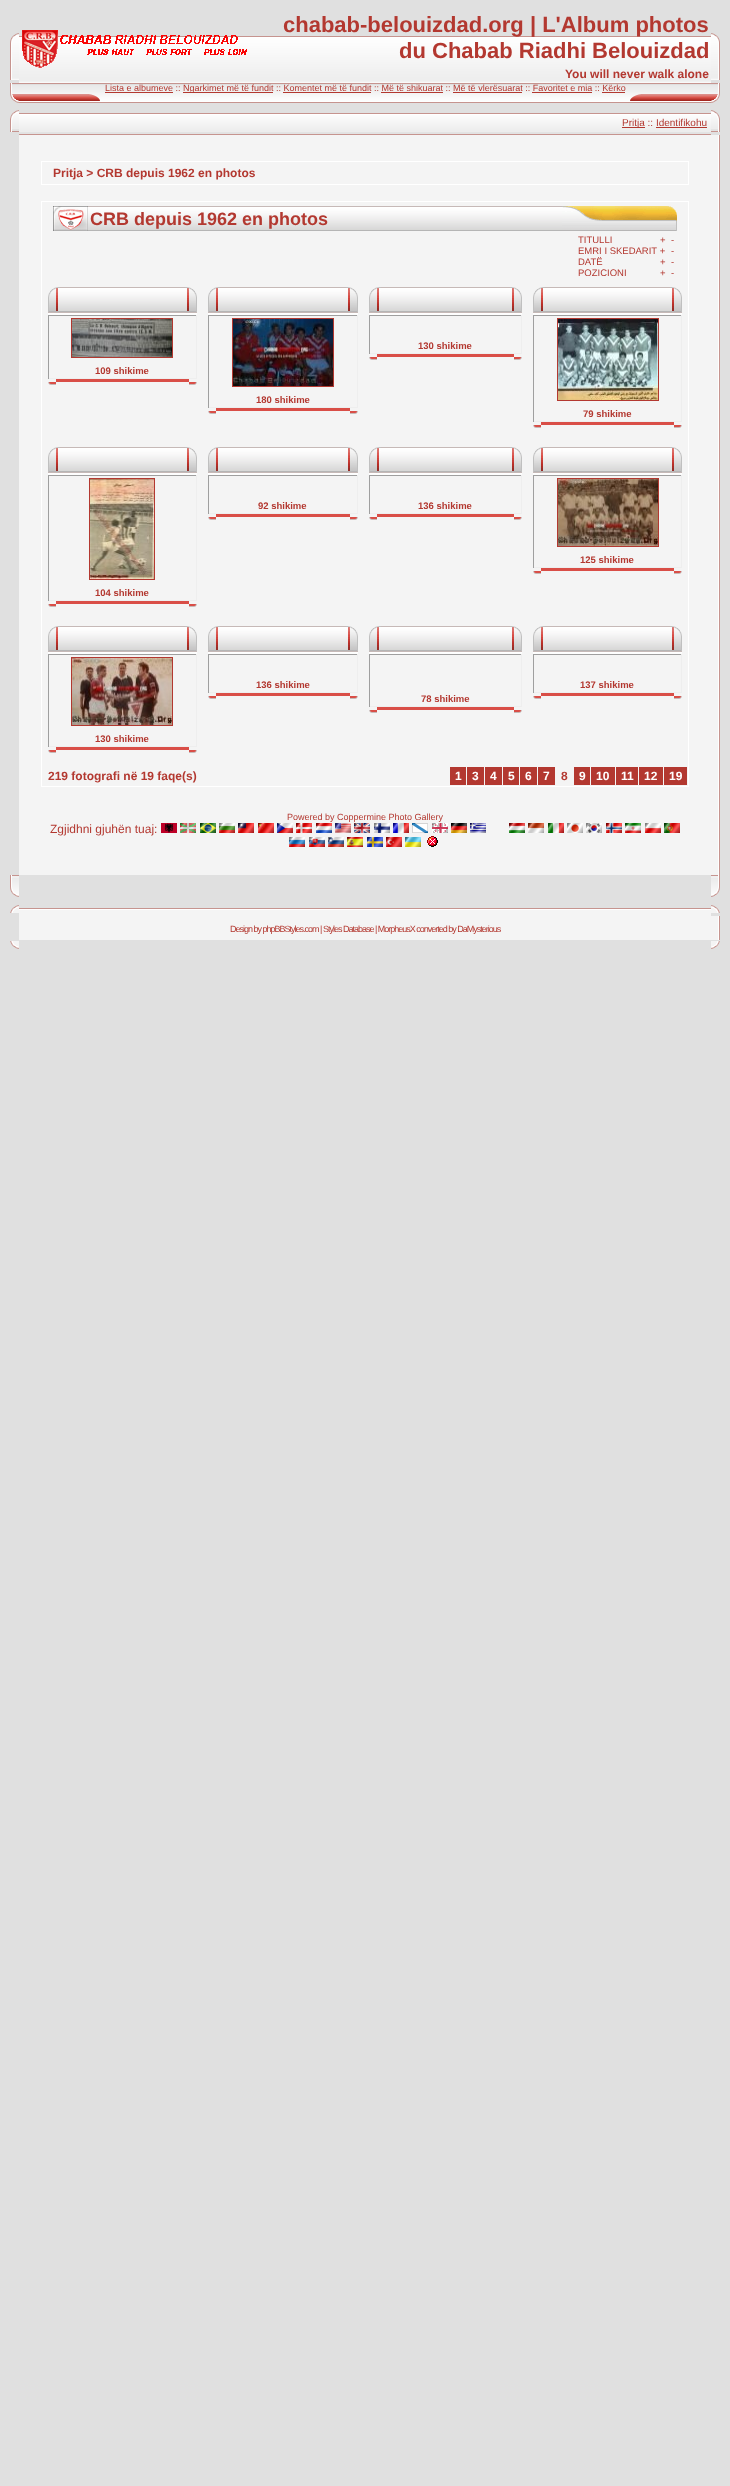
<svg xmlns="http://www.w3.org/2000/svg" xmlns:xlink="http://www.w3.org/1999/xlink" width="730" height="2486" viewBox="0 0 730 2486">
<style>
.cls-1{font:bold 22px Liberation Sans;fill:#b33830}
.cls-2{font:bold 12px Liberation Sans;fill:#b33830}
.cls-3{font:9px Liberation Sans;fill:#b33830}
.cls-4{font:10px Liberation Sans;fill:#b33830}
.cls-5{font:bold 18px Liberation Sans;fill:#b33830}
.cls-6{font:9.5px Liberation Sans;fill:#b33830}
.cls-7{font:bold 9.5px Liberation Sans;fill:#b33830}
.cls-8{font:bold 12px Liberation Sans;fill:#ffffff}
.cls-9{font:12px Liberation Sans;fill:#b33830}
.cls-10{font:9px Liberation Sans;letter-spacing:-1px;fill:#b33830}
</style>
<rect width="100%" height="100%" fill="#e0e0e0"/>
<image xlink:href="image0.png" x="10" y="33" width="9" height="47"/>
<image xlink:href="image1.png" x="19" y="36" width="692" height="47"/>
<image xlink:href="image2.png" x="22" y="30" width="225" height="38"/>
<image xlink:href="image3.png" x="711" y="33" width="9" height="47"/>
<image xlink:href="image4.png" x="10" y="83" width="9" height="20"/>
<image xlink:href="image5.png" x="19" y="83" width="692" height="20"/>
<image xlink:href="image6.png" x="100" y="94" width="530" height="7"/>
<rect fill="#b33830" x="105" y="92" width="68" height="1"/>
<rect fill="#b33830" x="183" y="92" width="90" height="1"/>
<rect fill="#b33830" x="283" y="92" width="88" height="1"/>
<rect fill="#b33830" x="381" y="92" width="62" height="1"/>
<rect fill="#b33830" x="453" y="92" width="69" height="1"/>
<rect fill="#b33830" x="532" y="92" width="60" height="1"/>
<rect fill="#b33830" x="602" y="92" width="23" height="1"/>
<image xlink:href="image7.png" x="89" y="94" width="11" height="7"/>
<image xlink:href="image8.png" x="630" y="94" width="11" height="7"/>
<image xlink:href="image9.png" x="711" y="83" width="9" height="20"/>
<image xlink:href="image10.png" x="10" y="110" width="9" height="22"/>
<image xlink:href="image11.png" x="19" y="113" width="692" height="22"/>
<rect fill="#b33830" x="622" y="127" width="23" height="1"/>
<rect fill="#b33830" x="656" y="127" width="51" height="1"/>
<image xlink:href="image12.png" x="711" y="110" width="9" height="22"/>
<rect fill="#f4f4f4" x="19" y="135" width="692" height="740"/>
<rect fill="none" stroke="#ffffff" x="41.5" y="161.5" width="647" height="23"/>
<rect fill="none" stroke="#ffffff" x="41.5" y="201.5" width="647" height="585"/>
<image xlink:href="image13.png" x="88" y="206" width="474" height="25"/>
<image xlink:href="image14.png" x="53" y="206" width="35" height="25"/>
<image xlink:href="image15.png" x="562" y="206" width="115" height="25"/>
<image xlink:href="image16.png" x="369" y="287" width="153" height="28"/>
<image xlink:href="image17.png" x="369" y="287" width="12" height="25"/>
<image xlink:href="image18.png" x="510" y="287" width="12" height="25"/>
<rect fill="#9f9f9f" x="369" y="315" width="153" height="1"/>
<rect fill="#eeeeee" x="521" y="315" width="1" height="39"/>
<rect fill="#eeeeee" x="369" y="353" width="153" height="1"/>
<rect fill="#9f9f9f" x="369" y="315" width="1" height="39"/>
<rect fill="#d94e47" x="377" y="354" width="137" height="3"/>
<image xlink:href="image19.png" x="369" y="357" width="8" height="3"/>
<image xlink:href="image20.png" x="514" y="357" width="8" height="3"/>
<image xlink:href="image21.png" x="48" y="287" width="149" height="28"/>
<image xlink:href="image17.png" x="48" y="287" width="12" height="25"/>
<image xlink:href="image18.png" x="185" y="287" width="12" height="25"/>
<rect fill="#9f9f9f" x="48" y="315" width="149" height="1"/>
<rect fill="#eeeeee" x="196" y="315" width="1" height="64"/>
<rect fill="#eeeeee" x="48" y="378" width="149" height="1"/>
<rect fill="#9f9f9f" x="48" y="315" width="1" height="64"/>
<rect fill="none" stroke="#b33830" x="71.5" y="318.5" width="101" height="39"/>
<image xlink:href="image22.png" x="72" y="319" width="100" height="38"/>
<rect fill="#d94e47" x="56" y="379" width="133" height="3"/>
<image xlink:href="image19.png" x="48" y="382" width="8" height="3"/>
<image xlink:href="image20.png" x="189" y="382" width="8" height="3"/>
<image xlink:href="image23.png" x="208" y="287" width="150" height="28"/>
<image xlink:href="image17.png" x="208" y="287" width="12" height="25"/>
<image xlink:href="image18.png" x="346" y="287" width="12" height="25"/>
<rect fill="#9f9f9f" x="208" y="315" width="150" height="1"/>
<rect fill="#eeeeee" x="357" y="315" width="1" height="93"/>
<rect fill="#eeeeee" x="208" y="407" width="150" height="1"/>
<rect fill="#9f9f9f" x="208" y="315" width="1" height="93"/>
<rect fill="none" stroke="#b33830" x="232.5" y="318.5" width="101" height="68"/>
<image xlink:href="image24.png" x="233" y="319" width="100" height="67"/>
<rect fill="#d94e47" x="216" y="408" width="134" height="3"/>
<image xlink:href="image19.png" x="208" y="411" width="8" height="3"/>
<image xlink:href="image20.png" x="350" y="411" width="8" height="3"/>
<image xlink:href="image21.png" x="533" y="287" width="149" height="28"/>
<image xlink:href="image17.png" x="533" y="287" width="12" height="25"/>
<image xlink:href="image18.png" x="670" y="287" width="12" height="25"/>
<rect fill="#9f9f9f" x="533" y="315" width="149" height="1"/>
<rect fill="#eeeeee" x="681" y="315" width="1" height="107"/>
<rect fill="#eeeeee" x="533" y="421" width="149" height="1"/>
<rect fill="#9f9f9f" x="533" y="315" width="1" height="107"/>
<rect fill="none" stroke="#b33830" x="557.5" y="318.5" width="101" height="82"/>
<image xlink:href="image25.png" x="558" y="319" width="100" height="81"/>
<rect fill="#d94e47" x="541" y="422" width="133" height="3"/>
<image xlink:href="image19.png" x="533" y="425" width="8" height="3"/>
<image xlink:href="image20.png" x="674" y="425" width="8" height="3"/>
<image xlink:href="image23.png" x="208" y="447" width="150" height="28"/>
<image xlink:href="image17.png" x="208" y="447" width="12" height="25"/>
<image xlink:href="image18.png" x="346" y="447" width="12" height="25"/>
<rect fill="#9f9f9f" x="208" y="475" width="150" height="1"/>
<rect fill="#eeeeee" x="357" y="475" width="1" height="39"/>
<rect fill="#eeeeee" x="208" y="513" width="150" height="1"/>
<rect fill="#9f9f9f" x="208" y="475" width="1" height="39"/>
<rect fill="#d94e47" x="216" y="514" width="134" height="3"/>
<image xlink:href="image19.png" x="208" y="517" width="8" height="3"/>
<image xlink:href="image20.png" x="350" y="517" width="8" height="3"/>
<image xlink:href="image16.png" x="369" y="447" width="153" height="28"/>
<image xlink:href="image17.png" x="369" y="447" width="12" height="25"/>
<image xlink:href="image18.png" x="510" y="447" width="12" height="25"/>
<rect fill="#9f9f9f" x="369" y="475" width="153" height="1"/>
<rect fill="#eeeeee" x="521" y="475" width="1" height="39"/>
<rect fill="#eeeeee" x="369" y="513" width="153" height="1"/>
<rect fill="#9f9f9f" x="369" y="475" width="1" height="39"/>
<rect fill="#d94e47" x="377" y="514" width="137" height="3"/>
<image xlink:href="image19.png" x="369" y="517" width="8" height="3"/>
<image xlink:href="image20.png" x="514" y="517" width="8" height="3"/>
<image xlink:href="image21.png" x="533" y="447" width="149" height="28"/>
<image xlink:href="image17.png" x="533" y="447" width="12" height="25"/>
<image xlink:href="image18.png" x="670" y="447" width="12" height="25"/>
<rect fill="#9f9f9f" x="533" y="475" width="149" height="1"/>
<rect fill="#eeeeee" x="681" y="475" width="1" height="93"/>
<rect fill="#eeeeee" x="533" y="567" width="149" height="1"/>
<rect fill="#9f9f9f" x="533" y="475" width="1" height="93"/>
<rect fill="none" stroke="#b33830" x="557.5" y="478.5" width="101" height="68"/>
<image xlink:href="image26.png" x="558" y="479" width="100" height="67"/>
<rect fill="#d94e47" x="541" y="568" width="133" height="3"/>
<image xlink:href="image19.png" x="533" y="571" width="8" height="3"/>
<image xlink:href="image20.png" x="674" y="571" width="8" height="3"/>
<image xlink:href="image21.png" x="48" y="447" width="149" height="28"/>
<image xlink:href="image17.png" x="48" y="447" width="12" height="25"/>
<image xlink:href="image18.png" x="185" y="447" width="12" height="25"/>
<rect fill="#9f9f9f" x="48" y="475" width="149" height="1"/>
<rect fill="#eeeeee" x="196" y="475" width="1" height="126"/>
<rect fill="#eeeeee" x="48" y="600" width="149" height="1"/>
<rect fill="#9f9f9f" x="48" y="475" width="1" height="126"/>
<rect fill="none" stroke="#b33830" x="89.5" y="478.5" width="65" height="101"/>
<image xlink:href="image27.png" x="90" y="479" width="64" height="100"/>
<rect fill="#d94e47" x="56" y="601" width="133" height="3"/>
<image xlink:href="image19.png" x="48" y="604" width="8" height="3"/>
<image xlink:href="image20.png" x="189" y="604" width="8" height="3"/>
<image xlink:href="image23.png" x="208" y="626" width="150" height="28"/>
<image xlink:href="image17.png" x="208" y="626" width="12" height="25"/>
<image xlink:href="image18.png" x="346" y="626" width="12" height="25"/>
<rect fill="#9f9f9f" x="208" y="654" width="150" height="1"/>
<rect fill="#eeeeee" x="357" y="654" width="1" height="39"/>
<rect fill="#eeeeee" x="208" y="692" width="150" height="1"/>
<rect fill="#9f9f9f" x="208" y="654" width="1" height="39"/>
<rect fill="#d94e47" x="216" y="693" width="134" height="3"/>
<image xlink:href="image19.png" x="208" y="696" width="8" height="3"/>
<image xlink:href="image20.png" x="350" y="696" width="8" height="3"/>
<image xlink:href="image21.png" x="533" y="626" width="149" height="28"/>
<image xlink:href="image17.png" x="533" y="626" width="12" height="25"/>
<image xlink:href="image18.png" x="670" y="626" width="12" height="25"/>
<rect fill="#9f9f9f" x="533" y="654" width="149" height="1"/>
<rect fill="#eeeeee" x="681" y="654" width="1" height="39"/>
<rect fill="#eeeeee" x="533" y="692" width="149" height="1"/>
<rect fill="#9f9f9f" x="533" y="654" width="1" height="39"/>
<rect fill="#d94e47" x="541" y="693" width="133" height="3"/>
<image xlink:href="image19.png" x="533" y="696" width="8" height="3"/>
<image xlink:href="image20.png" x="674" y="696" width="8" height="3"/>
<image xlink:href="image16.png" x="369" y="626" width="153" height="28"/>
<image xlink:href="image17.png" x="369" y="626" width="12" height="25"/>
<image xlink:href="image18.png" x="510" y="626" width="12" height="25"/>
<rect fill="#9f9f9f" x="369" y="654" width="153" height="1"/>
<rect fill="#eeeeee" x="521" y="654" width="1" height="53"/>
<rect fill="#eeeeee" x="369" y="706" width="153" height="1"/>
<rect fill="#9f9f9f" x="369" y="654" width="1" height="53"/>
<rect fill="#d94e47" x="377" y="707" width="137" height="3"/>
<image xlink:href="image19.png" x="369" y="710" width="8" height="3"/>
<image xlink:href="image20.png" x="514" y="710" width="8" height="3"/>
<image xlink:href="image21.png" x="48" y="626" width="149" height="28"/>
<image xlink:href="image17.png" x="48" y="626" width="12" height="25"/>
<image xlink:href="image18.png" x="185" y="626" width="12" height="25"/>
<rect fill="#9f9f9f" x="48" y="654" width="149" height="1"/>
<rect fill="#eeeeee" x="196" y="654" width="1" height="93"/>
<rect fill="#eeeeee" x="48" y="746" width="149" height="1"/>
<rect fill="#9f9f9f" x="48" y="654" width="1" height="93"/>
<rect fill="none" stroke="#b33830" x="71.5" y="657.5" width="101" height="68"/>
<image xlink:href="image28.png" x="72" y="658" width="100" height="67"/>
<rect fill="#d94e47" x="56" y="747" width="133" height="3"/>
<image xlink:href="image19.png" x="48" y="750" width="8" height="3"/>
<image xlink:href="image20.png" x="189" y="750" width="8" height="3"/>
<rect fill="#b33830" x="450" y="767" width="16" height="18"/>
<rect fill="#b33830" x="467" y="767" width="17" height="18"/>
<rect fill="#b33830" x="485" y="767" width="17" height="18"/>
<rect fill="#b33830" x="503" y="767" width="16" height="18"/>
<rect fill="#b33830" x="520" y="767" width="17" height="18"/>
<rect fill="#b33830" x="538" y="767" width="17" height="18"/>
<rect fill="#b33830" x="574" y="767" width="16" height="18"/>
<rect fill="#b33830" x="591" y="767" width="24" height="18"/>
<rect fill="#b33830" x="616" y="767" width="22" height="18"/>
<rect fill="#b33830" x="639" y="767" width="24" height="18"/>
<rect fill="#b33830" x="664" y="767" width="23" height="18"/>
<image xlink:href="image29.png" x="161" y="823" width="16" height="10"/>
<image xlink:href="image30.png" x="180" y="823" width="16" height="10"/>
<image xlink:href="image31.png" x="200" y="823" width="16" height="10"/>
<image xlink:href="image32.png" x="219" y="823" width="16" height="10"/>
<image xlink:href="image33.png" x="238" y="823" width="16" height="10"/>
<image xlink:href="image34.png" x="258" y="823" width="16" height="10"/>
<image xlink:href="image35.png" x="277" y="823" width="16" height="10"/>
<image xlink:href="image36.png" x="296" y="823" width="16" height="10"/>
<image xlink:href="image37.png" x="316" y="823" width="16" height="10"/>
<image xlink:href="image38.png" x="335" y="823" width="16" height="10"/>
<image xlink:href="image39.png" x="354" y="823" width="16" height="10"/>
<image xlink:href="image40.png" x="374" y="823" width="16" height="10"/>
<image xlink:href="image41.png" x="393" y="823" width="16" height="10"/>
<image xlink:href="image42.png" x="412" y="823" width="16" height="10"/>
<image xlink:href="image43.png" x="432" y="823" width="16" height="10"/>
<image xlink:href="image44.png" x="451" y="823" width="16" height="10"/>
<image xlink:href="image45.png" x="470" y="823" width="16" height="10"/>
<image xlink:href="image46.png" x="509" y="823" width="16" height="10"/>
<image xlink:href="image47.png" x="528" y="823" width="16" height="10"/>
<image xlink:href="image48.png" x="548" y="823" width="16" height="10"/>
<image xlink:href="image49.png" x="567" y="823" width="16" height="10"/>
<image xlink:href="image50.png" x="586" y="823" width="16" height="10"/>
<image xlink:href="image51.png" x="606" y="823" width="16" height="10"/>
<image xlink:href="image52.png" x="625" y="823" width="16" height="10"/>
<image xlink:href="image53.png" x="645" y="823" width="16" height="10"/>
<image xlink:href="image54.png" x="664" y="823" width="16" height="10"/>
<image xlink:href="image55.png" x="289" y="837" width="16" height="10"/>
<image xlink:href="image56.png" x="309" y="837" width="16" height="10"/>
<image xlink:href="image57.png" x="328" y="837" width="16" height="10"/>
<image xlink:href="image58.png" x="347" y="837" width="16" height="10"/>
<image xlink:href="image59.png" x="367" y="837" width="16" height="10"/>
<image xlink:href="image60.png" x="386" y="837" width="16" height="10"/>
<image xlink:href="image61.png" x="405" y="837" width="16" height="10"/>
<image xlink:href="image62.png" x="427" y="836" width="11" height="11"/>
<image xlink:href="image63.png" x="711" y="135" width="9" height="740"/>
<image xlink:href="image64.png" x="10" y="875" width="9" height="22"/>
<image xlink:href="image65.png" x="711" y="875" width="9" height="22"/>
<image xlink:href="image66.png" x="10" y="905" width="9" height="8"/>
<image xlink:href="image67.png" x="19" y="908" width="692" height="8"/>
<image xlink:href="image68.png" x="711" y="905" width="9" height="8"/>
<rect fill="#f4f4f4" x="19" y="916" width="692" height="24"/>
<image xlink:href="image69.png" x="711" y="916" width="9" height="24"/>
<image xlink:href="image70.png" x="10" y="941" width="9" height="8"/>
<image xlink:href="image71.png" x="711" y="941" width="9" height="8"/>
<text class="cls-1" x="283" y="32">chabab-belouizdad.org | L'Album photos</text>
<text class="cls-1" x="399" y="58">du Chabab Riadhi Belouizdad</text>
<text class="cls-2" x="565" y="78">You will never walk alone</text>
<text class="cls-3" x="105" y="91">Lista e albumeve ::</text>
<text class="cls-3" x="183" y="91">Ngarkimet më të fundit :: Komentet më të fundit :: Më të shikuarat :: Më të vlerësuarat :: Favoritet e mia :: Kërko</text>
<text class="cls-4" x="622" y="126">Pritja :: Identifikohu</text>
<text class="cls-2" x="53" y="177">Pritja &gt; CRB depuis 1962 en photos</text>
<text class="cls-5" x="90" y="225">CRB depuis 1962 en photos</text>
<text class="cls-6" x="578" y="243">TITULLI</text>
<text class="cls-6" x="660" y="243">+</text>
<text class="cls-6" x="671" y="243">-</text>
<text class="cls-6" x="578" y="254">EMRI I SKEDARIT +</text>
<text class="cls-6" x="671" y="254">-</text>
<text class="cls-6" x="578" y="265">DATË</text>
<text class="cls-6" x="660" y="265">+</text>
<text class="cls-6" x="671" y="265">-</text>
<text class="cls-6" x="578" y="276">POZICIONI</text>
<text class="cls-6" x="660" y="276">+</text>
<text class="cls-6" x="671" y="276">-</text>
<text class="cls-7" x="418" y="349">130 shikime</text>
<text class="cls-7" x="95" y="374">109 shikime</text>
<text class="cls-7" x="256" y="403">180 shikime</text>
<text class="cls-7" x="583" y="417">79 shikime</text>
<text class="cls-7" x="258" y="509">92 shikime</text>
<text class="cls-7" x="418" y="509">136 shikime</text>
<text class="cls-7" x="580" y="563">125 shikime</text>
<text class="cls-7" x="95" y="596">104 shikime</text>
<text class="cls-7" x="256" y="688">136 shikime</text>
<text class="cls-7" x="580" y="688">137 shikime</text>
<text class="cls-7" x="421" y="702">78 shikime</text>
<text class="cls-7" x="95" y="742">130 shikime</text>
<text class="cls-2" x="48" y="780">219 fotografi në 19 faqe(s)</text>
<text class="cls-8" x="455" y="780">1</text>
<text class="cls-8" x="472" y="780">3</text>
<text class="cls-8" x="490" y="780">4</text>
<text class="cls-8" x="508" y="780">5</text>
<text class="cls-8" x="525" y="780">6</text>
<text class="cls-8" x="543" y="780">7</text>
<text class="cls-2" x="561" y="780">8</text>
<text class="cls-8" x="579" y="780">9</text>
<text class="cls-8" x="596" y="780">10</text>
<text class="cls-8" x="621" y="780">11</text>
<text class="cls-8" x="644" y="780">12</text>
<text class="cls-8" x="669" y="780">19</text>
<text class="cls-3" x="287" y="820">Powered by Coppermine Photo Gallery</text>
<text class="cls-9" x="50" y="833">Zgjidhni gjuhën tuaj:</text>
<text class="cls-10" x="230" y="932">Design by phpBBStyles.com | Styles Database | MorpheusX converted by DaMysterious</text>
</svg>
